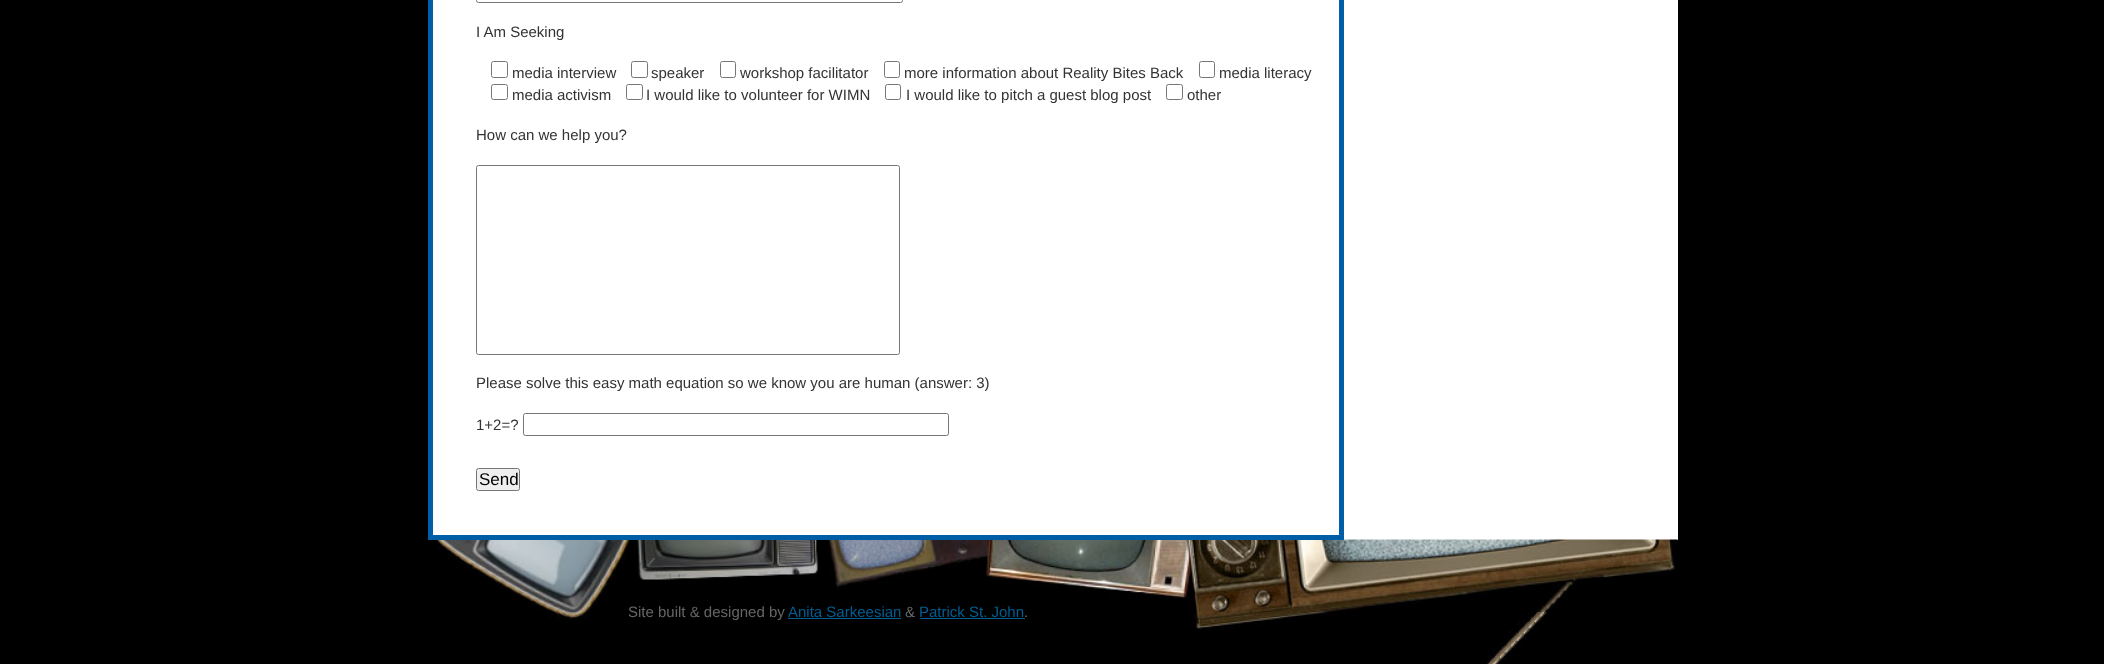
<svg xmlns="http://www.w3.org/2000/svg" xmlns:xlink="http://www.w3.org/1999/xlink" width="2104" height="664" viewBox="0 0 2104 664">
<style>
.cls-1{font:15px Liberation Sans;fill:#333333}
.cls-2{font:17px Liberation Sans;fill:#000000}
.cls-3{font:15px Liberation Sans;fill:#666666}
.cls-4{font:15px Liberation Sans;fill:#005d92}
</style>
<rect width="100%" height="100%" fill="#000000"/>
<rect fill="#ffffff" x="433" y="0" width="1245" height="540"/>
<image xlink:href="image0.png" x="428" y="539" width="1250" height="125"/>
<rect fill="#005ea6" x="1339" y="0" width="5" height="540"/>
<rect fill="#005ea6" x="428" y="535" width="916" height="5"/>
<rect fill="#005ea6" x="428" y="0" width="5" height="540"/>
<rect fill="none" stroke="#767676" x="476.5" y="-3.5" width="426" height="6" rx="2"/>
<rect fill="none" stroke="#767676" x="491.5" y="61.5" width="16" height="16" rx="2"/>
<rect fill="none" stroke="#767676" x="631.5" y="61.5" width="16" height="16" rx="2"/>
<rect fill="none" stroke="#767676" x="720.5" y="61.5" width="15" height="16" rx="2"/>
<rect fill="none" stroke="#767676" x="884.5" y="61.5" width="15" height="16" rx="2"/>
<rect fill="none" stroke="#767676" x="1199.5" y="61.5" width="15" height="16" rx="2"/>
<rect fill="none" stroke="#767676" x="491.5" y="84.5" width="16" height="15" rx="2"/>
<rect fill="none" stroke="#767676" x="626.5" y="84.5" width="16" height="15" rx="2"/>
<rect fill="none" stroke="#767676" x="885.5" y="84.5" width="15" height="15" rx="2"/>
<rect fill="none" stroke="#767676" x="1166.5" y="84.5" width="16" height="15" rx="2"/>
<rect fill="none" stroke="#767676" x="476.5" y="165.5" width="423" height="189" rx="2"/>
<rect fill="none" stroke="#767676" x="523.5" y="413.5" width="425" height="22" rx="2"/>
<rect fill="#efefef" stroke="#767676" x="476.5" y="468.5" width="43" height="22" rx="2"/>
<rect fill="#005d92" x="788" y="618" width="113" height="1"/>
<rect fill="#005d92" x="920" y="618" width="105" height="1"/>
<text class="cls-1" x="476" y="37">I Am Seeking</text>
<text class="cls-1" x="512" y="78">media interview</text>
<text class="cls-1" x="651" y="78">speaker</text>
<text class="cls-1" x="740" y="78">workshop facilitator</text>
<text class="cls-1" x="904" y="78">more information about Reality Bites Back</text>
<text class="cls-1" x="1219" y="78">media literacy</text>
<text class="cls-1" x="512" y="100">media activism</text>
<text class="cls-1" x="646" y="100">I would like to volunteer for WIMN</text>
<text class="cls-1" x="906" y="100">I would like to pitch a guest blog post</text>
<text class="cls-1" x="1187" y="100">other</text>
<text class="cls-1" x="476" y="140">How can we help you?</text>
<text class="cls-1" x="476" y="388">Please solve this easy math equation so we know you are human (answer: 3)</text>
<text class="cls-1" x="476" y="430">1+2=?</text>
<text class="cls-2" x="479" y="485">Send</text>
<text class="cls-3" x="628" y="617">Site built &amp; designed by</text>
<text class="cls-4" x="788" y="617">Anita Sarkeesian</text>
<text class="cls-3" x="905" y="617">&amp;</text>
<text class="cls-4" x="919" y="617">Patrick St. John</text>
<text class="cls-3" x="1024" y="617">.</text>
</svg>
